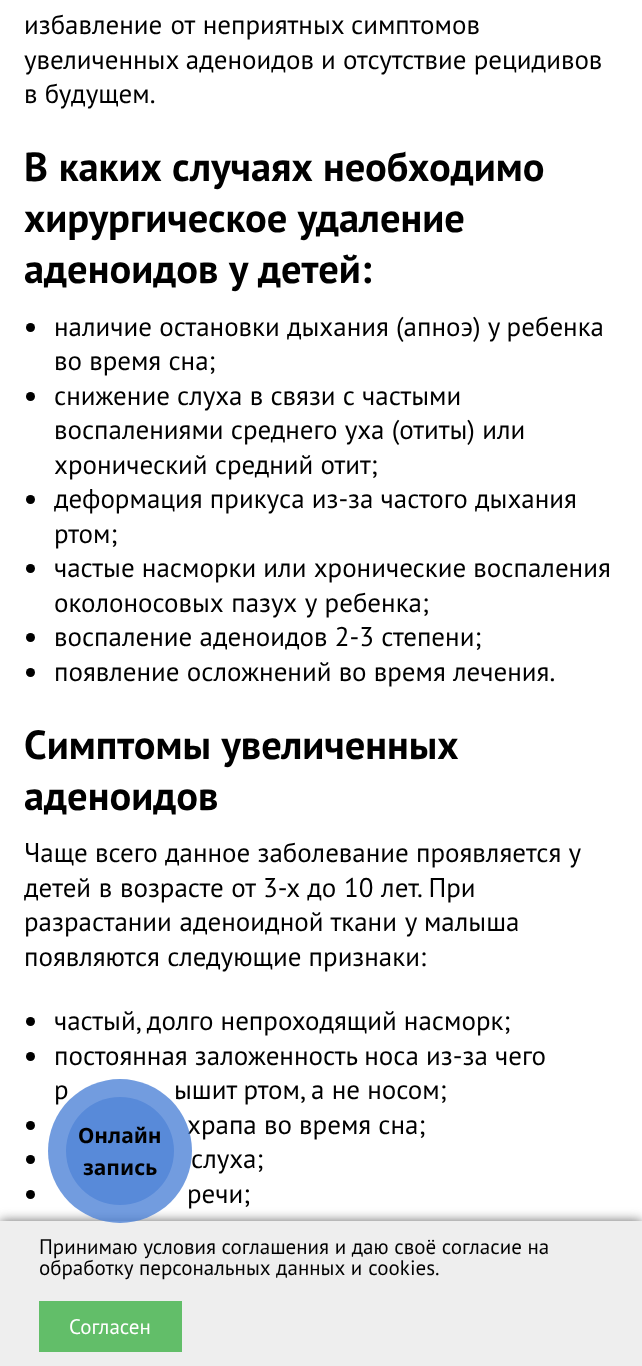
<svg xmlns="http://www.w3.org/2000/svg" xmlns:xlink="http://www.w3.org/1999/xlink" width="642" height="1366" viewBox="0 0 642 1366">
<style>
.cls-1{font:27px PT Sans;fill:#000000}
.cls-2{font:bold 40.5px PT Sans;fill:#000000}
.cls-3{font:bold 21px Noto Sans;fill:#000000}
.cls-4{font:21px PT Sans;fill:#000000}
.cls-5{font:21px PT Sans;fill:#ffffff}
</style>
<rect width="100%" height="100%" fill="#ffffff"/>
<circle fill="#000000" cx="30.5" cy="327.5" r="4.5"/>
<circle fill="#000000" cx="30.5" cy="396.5" r="4.5"/>
<circle fill="#000000" cx="30.5" cy="499.5" r="4.5"/>
<circle fill="#000000" cx="30.5" cy="568.5" r="4.5"/>
<circle fill="#000000" cx="30.5" cy="637.5" r="4.5"/>
<circle fill="#000000" cx="30.5" cy="672.5" r="4.5"/>
<circle fill="#000000" cx="30.5" cy="1021.5" r="4.5"/>
<circle fill="#000000" cx="30.5" cy="1056.5" r="4.5"/>
<circle fill="#000000" cx="30.5" cy="1125.5" r="4.5"/>
<circle fill="#000000" cx="30.5" cy="1159.5" r="4.5"/>
<circle fill="#000000" cx="30.5" cy="1194.5" r="4.5"/>
<rect fill="#666666" filter="blur(6px)" x="0" y="1221" width="642" height="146"/>
<rect fill="#eeeeee" x="0" y="1221" width="642" height="145"/>
<rect fill="#62be69" x="39" y="1301" width="143" height="51"/>
<text class="cls-1" x="24" y="34" word-spacing="1">избавление от неприятных</text>
<text class="cls-1" x="351" y="34">симптомов</text>
<text class="cls-1"><tspan x="24" y="69">увеличенных аденоидов и отсутствие рецидивов</tspan><tspan x="24" y="103">в будущем.</tspan></text>
<text class="cls-2"><tspan x="24" y="181" word-spacing="0.5">В каких случаях необходимо</tspan><tspan x="24" y="232" word-spacing="1">хирургическое удаление</tspan><tspan x="24" y="283" word-spacing="1">аденоидов у детей:</tspan></text>
<text class="cls-1"><tspan x="54" y="336">наличие остановки дыхания (апноэ) у ребенка</tspan><tspan x="54" y="370">во время сна;</tspan><tspan x="54" y="405">снижение слуха в связи с частыми</tspan><tspan x="54" y="439">воспалениями среднего уха (отиты) или</tspan><tspan x="54" y="474">хронический средний отит;</tspan><tspan x="54" y="508">деформация прикуса из-за частого дыхания</tspan><tspan x="54" y="543">ртом;</tspan><tspan x="54" y="577">частые насморки или хронические воспаления</tspan><tspan x="54" y="612" word-spacing="1">околоносовых пазух у ребенка;</tspan><tspan x="54" y="646">воспаление аденоидов 2-3 степени;</tspan><tspan x="54" y="681">появление осложнений во время лечения.</tspan></text>
<text class="cls-2"><tspan x="24" y="759" word-spacing="1">Симптомы увеличенных</tspan><tspan x="24" y="810">аденоидов</tspan></text>
<text class="cls-1"><tspan x="24" y="862">Чаще всего данное заболевание проявляется у</tspan><tspan x="24" y="897" word-spacing="0.5">детей в возрасте от 3-х до 10 лет. При</tspan><tspan x="24" y="931" word-spacing="0.5">разрастании аденоидной ткани у малыша</tspan><tspan x="24" y="966">появляются следующие признаки:</tspan></text>
<text class="cls-1"><tspan x="54" y="1030">частый, долго непроходящий насморк;</tspan><tspan x="54" y="1065">постоянная заложенность носа из-за чего</tspan><tspan x="54" y="1099">р</tspan></text>
<text class="cls-1" x="174" y="1099">ышит ртом, а не носом;</text>
<text class="cls-1" x="187" y="1134">храпа во время сна;</text>
<text class="cls-1" x="191" y="1168">слуха;</text>
<text class="cls-1" x="187" y="1203" word-spacing="1">речи;</text>
<circle fill="#487ed5" fill-opacity="0.62" cx="120" cy="1151" r="54"/>
<circle fill="#487ed5" fill-opacity="0.77" cx="120" cy="1151" r="72"/>
<text class="cls-3" x="78" y="1143">Онлайн</text>
<text class="cls-3" x="83" y="1175">запись</text>
<text class="cls-4"><tspan x="39" y="1254">Принимаю условия соглашения и даю своё согласие на</tspan><tspan x="39" y="1275" word-spacing="0.5">обработку персональных данных и cookies</tspan></text>
<text class="cls-4" x="435" y="1275">.</text>
<text class="cls-5" x="69" y="1334">Согласен</text>
</svg>
